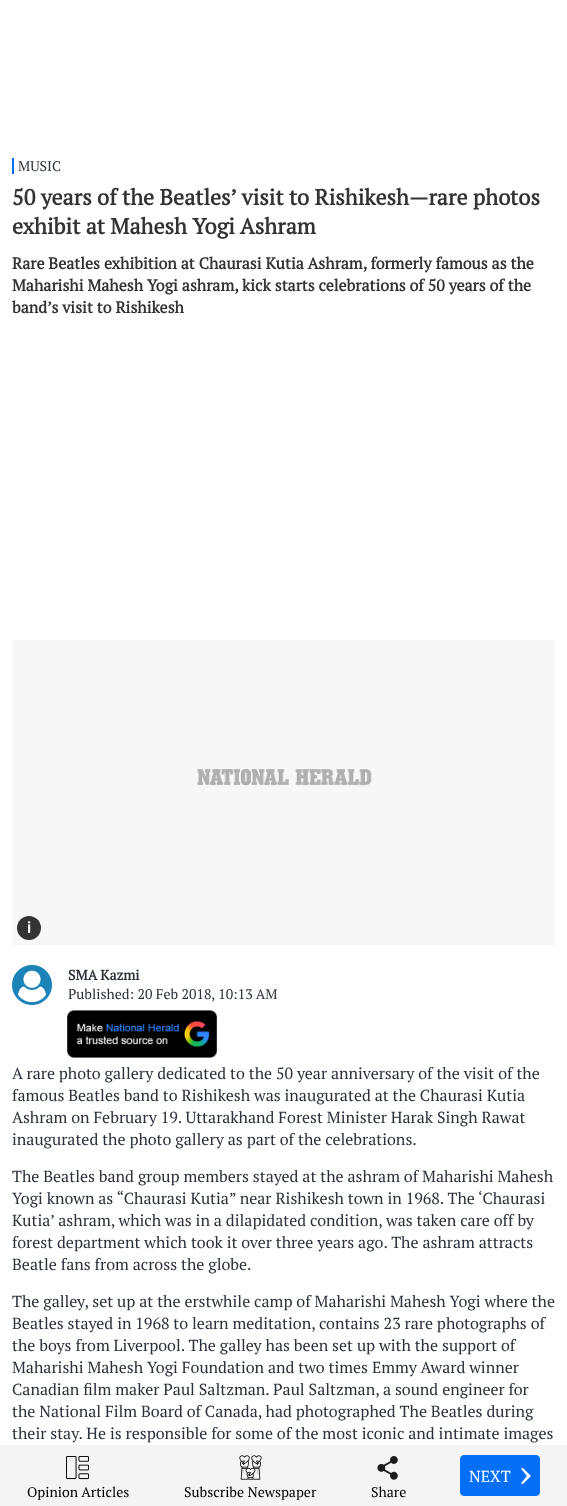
<svg xmlns="http://www.w3.org/2000/svg" xmlns:xlink="http://www.w3.org/1999/xlink" width="567" height="1506" viewBox="0 0 567 1506">
<style>
.cls-1{font:14px PT Serif;fill:#2a313b}
.cls-2{font:bold 22px PT Serif;fill:#333333}
.cls-3{font:bold 16px PT Serif;fill:#333333}
.cls-4{font:600 16px Roboto;fill:#ffffff}
.cls-5{font:bold 14px PT Serif;fill:#2a313b}
.cls-6{font:16px PT Serif;fill:#2a313b}
.cls-7{font:16px PT Serif;fill:#ffffff}
.cls-8{font:14px PT Serif;fill:#000000}
</style>
<rect width="100%" height="100%" fill="#ffffff"/>
<rect fill="#056ff7" x="12" y="158" width="2" height="16"/>
<image xlink:href="image0.png" x="12" y="640" width="543" height="305"/>
<circle fill="#333333" cx="29" cy="928" r="12"/>
<image xlink:href="image1.png" x="12" y="965" width="40" height="40"/>
<image xlink:href="image2.png" x="67" y="1010" width="150" height="48"/>
<rect fill="#f4f4f4" x="0" y="1445" width="567" height="61"/>
<rect fill="#056ff7" stroke="#056ff7" x="460.5" y="1455.5" width="79" height="40" rx="3.5"/>
<image xlink:href="image3.png" x="521" y="1468" width="10" height="16"/>
<image xlink:href="image4.png" x="66" y="1456" width="24" height="24"/>
<image xlink:href="image5.png" x="239" y="1455" width="23" height="25"/>
<image xlink:href="image6.png" x="377" y="1456" width="21" height="24"/>
<text class="cls-1" x="18" y="171">MUSIC</text>
<text class="cls-2"><tspan x="12" y="205">50 years of the Beatles’ visit to Rishikesh—rare photos</tspan><tspan x="12" y="234">exhibit at Mahesh Yogi Ashram</tspan></text>
<text class="cls-3"><tspan x="12" y="269">Rare Beatles exhibition at Chaurasi Kutia Ashram, formerly famous as the</tspan><tspan x="12" y="291">Maharishi Mahesh Yogi ashram, kick starts celebrations of 50 years of the</tspan><tspan x="12" y="313">band’s visit to Rishikesh</tspan></text>
<text class="cls-4" x="27" y="933">i</text>
<text class="cls-5" x="68" y="980">SMA Kazmi</text>
<text class="cls-1" x="68" y="999">Published: 20 Feb 2018, 10:13 AM</text>
<text class="cls-6"><tspan x="12" y="1079">A rare photo gallery dedicated to the 50 year anniversary of the visit of the</tspan><tspan x="12" y="1101">famous Beatles band to Rishikesh was inaugurated at the Chaurasi Kutia</tspan><tspan x="12" y="1123">Ashram on February 19. Uttarakhand Forest Minister Harak Singh Rawat</tspan><tspan x="12" y="1145">inaugurated the photo gallery as part of the celebrations.</tspan></text>
<text class="cls-6"><tspan x="12" y="1182">The Beatles band group members stayed at the ashram of Maharishi Mahesh</tspan><tspan x="12" y="1204">Yogi known as “Chaurasi Kutia” near Rishikesh town in 1968. The ‘Chaurasi</tspan><tspan x="12" y="1226">Kutia’ ashram, which was in a dilapidated condition, was taken care off by</tspan><tspan x="12" y="1248">forest department which took it over three years ago. The ashram attracts</tspan><tspan x="12" y="1270">Beatle fans from across the globe.</tspan></text>
<text class="cls-6"><tspan x="12" y="1307">The galley, set up at the erstwhile camp of Maharishi Mahesh Yogi where the</tspan><tspan x="12" y="1329">Beatles stayed in 1968 to learn meditation, contains 23 rare photographs of</tspan><tspan x="12" y="1351">the boys from Liverpool. The galley has been set up with the support of</tspan><tspan x="12" y="1373">Maharishi Mahesh Yogi Foundation and two times Emmy Award winner</tspan><tspan x="12" y="1395">Canadian film maker Paul Saltzman. Paul Saltzman, a sound engineer for</tspan><tspan x="12" y="1417">the National Film Board of Canada, had photographed The Beatles during</tspan><tspan x="12" y="1439">their stay. He is responsible for some of the most iconic and intimate images</tspan></text>
<text class="cls-7" x="469" y="1482">NEXT</text>
<text class="cls-8" x="27" y="1497">Opinion Articles</text>
<text class="cls-8" x="184" y="1497">Subscribe Newspaper</text>
<text class="cls-8" x="371" y="1497">Share</text>
</svg>
